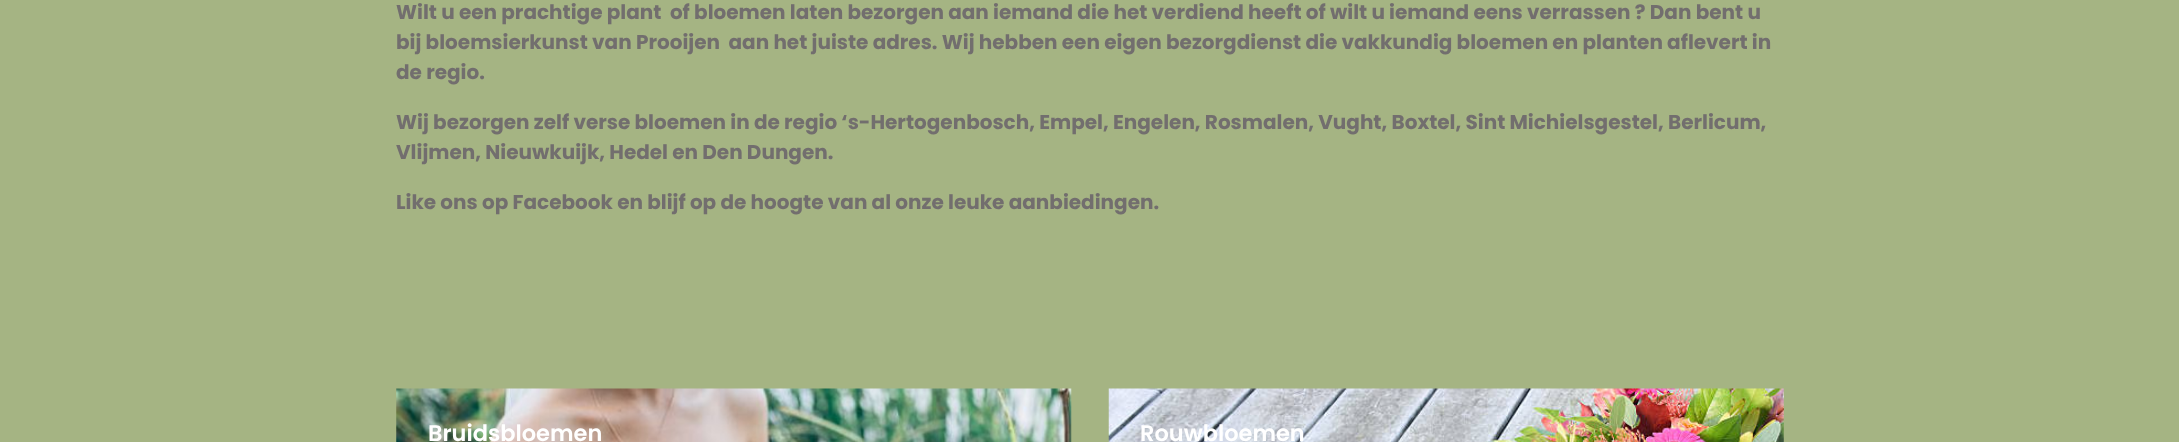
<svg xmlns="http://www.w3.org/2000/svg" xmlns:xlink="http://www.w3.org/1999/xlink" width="2179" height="442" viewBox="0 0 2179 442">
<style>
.cls-1{font:bold 20px Poppins;fill:#726e6e}
.cls-2{font:600 22.5px Poppins;fill:#ffffff}
</style>
<rect width="100%" height="100%" fill="#a5b483"/>
<image xlink:href="image0.png" x="396" y="388" width="676" height="54"/>
<image xlink:href="image1.png" x="1108" y="388" width="676" height="54"/>
<text class="cls-1" xml:space="preserve"><tspan x="396" y="19">Wilt u een prachtige plant  of bloemen laten bezorgen aan iemand die het verdiend heeft of wilt u iemand eens verrassen ? Dan bent u</tspan><tspan x="396" y="49">bij bloemsierkunst van Prooijen  aan het juiste adres. Wij hebben een eigen bezorgdienst die vakkundig bloemen en planten aflevert in</tspan><tspan x="396" y="79">de regio.</tspan></text>
<text class="cls-1"><tspan x="396" y="129">Wij bezorgen zelf verse bloemen in de regio ‘s-Hertogenbosch, Empel, Engelen, Rosmalen, Vught, Boxtel, Sint Michielsgestel, Berlicum,</tspan><tspan x="396" y="159">Vlijmen, Nieuwkuijk, Hedel en Den Dungen.</tspan></text>
<text class="cls-1" x="396" y="209">Like ons op Facebook en blijf op de hoogte van al onze leuke aanbiedingen.</text>
<text class="cls-2" x="428" y="441">Bruidsbloemen</text>
<text class="cls-2" x="1140" y="441">Rouwbloemen</text>
</svg>
